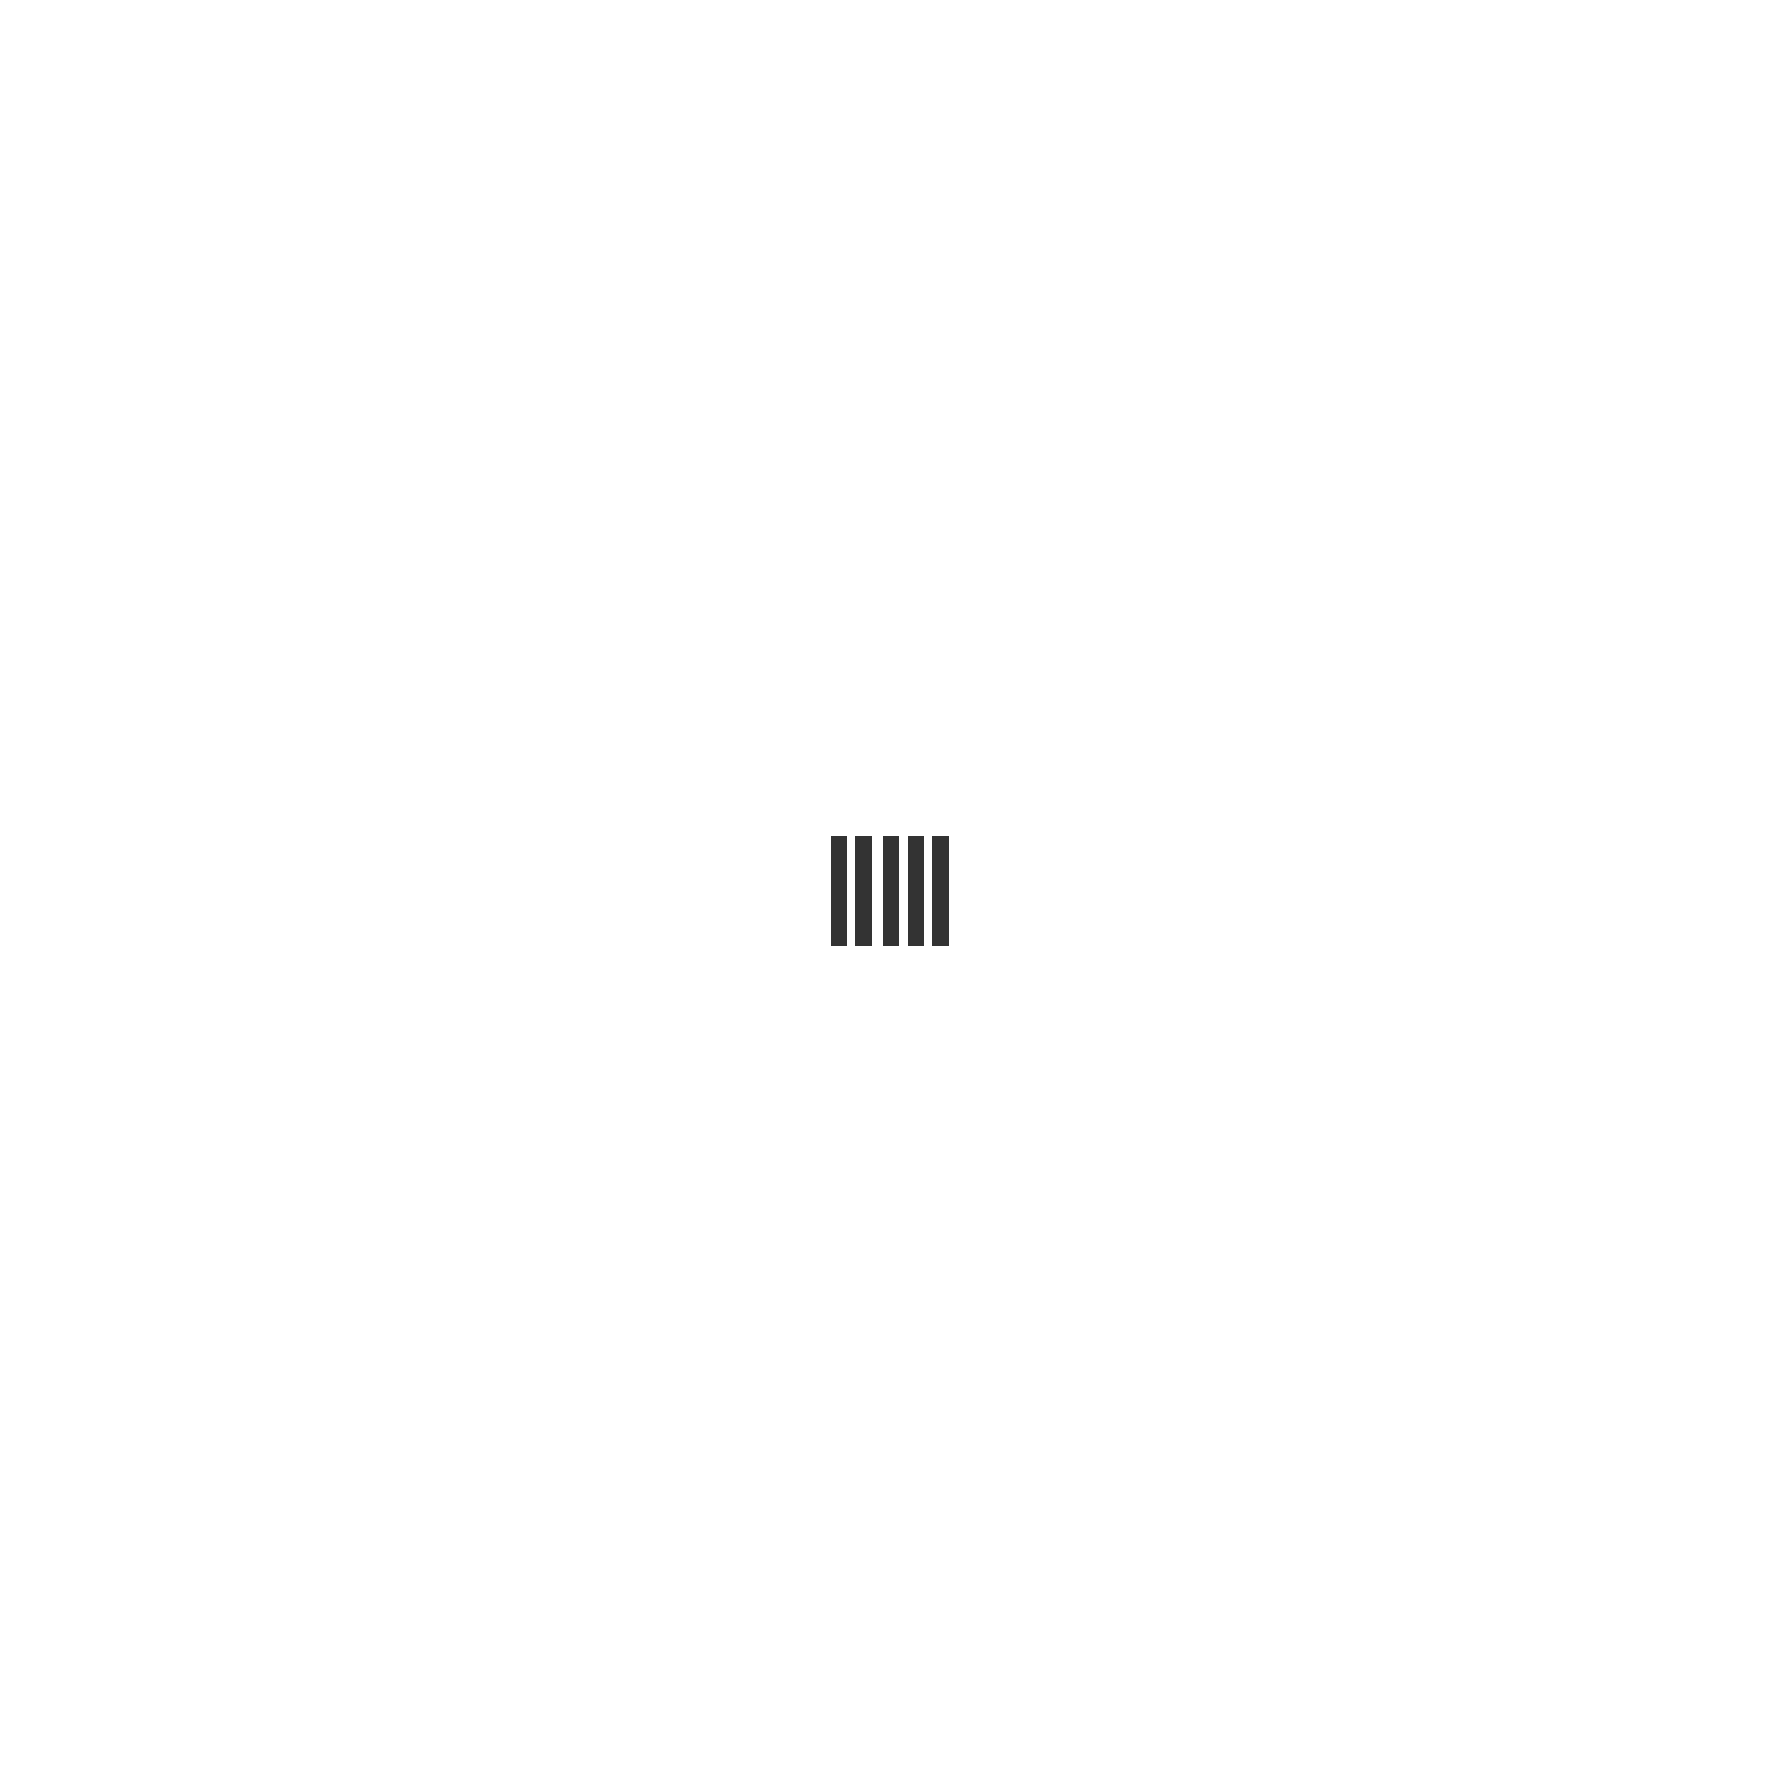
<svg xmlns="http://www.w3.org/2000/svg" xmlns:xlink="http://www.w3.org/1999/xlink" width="1779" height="1781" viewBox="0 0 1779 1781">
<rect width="100%" height="100%" fill="#ffffff"/>
<rect fill="#333333" x="831" y="836" width="16" height="110"/>
<rect fill="#333333" x="855" y="836" width="17" height="110"/>
<rect fill="#333333" x="883" y="836" width="16" height="110"/>
<rect fill="#333333" x="908" y="836" width="16" height="110"/>
<rect fill="#333333" x="932" y="836" width="17" height="110"/>
</svg>
